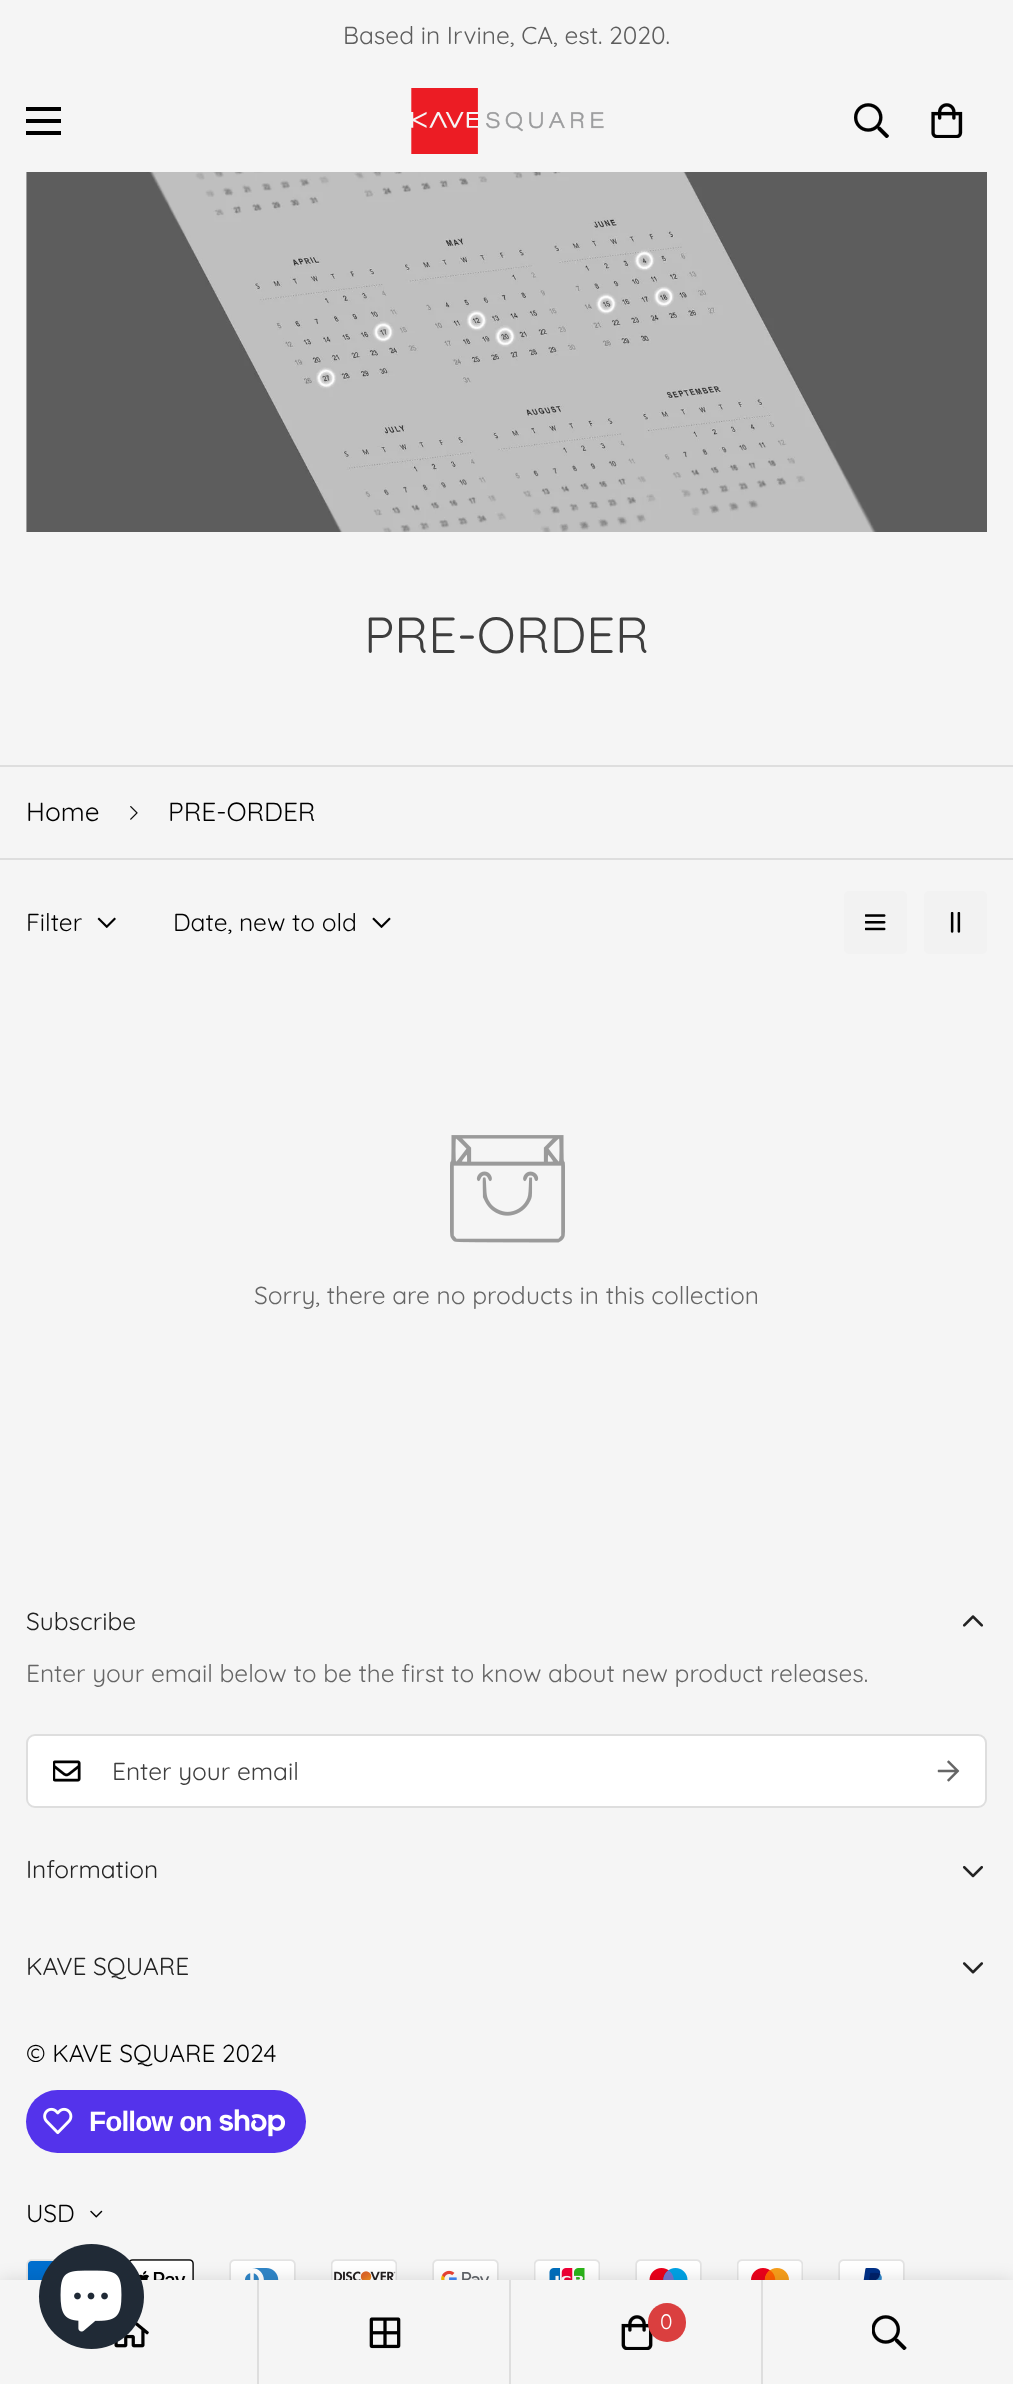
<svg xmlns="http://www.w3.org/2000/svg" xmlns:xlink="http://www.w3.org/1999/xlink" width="1013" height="2384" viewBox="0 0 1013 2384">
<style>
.cls-1{font:24.5px Quicksand;fill:#5d5d5d}
.cls-2{font:50.75px Quicksand;fill:#3e3e3e}
.cls-3{font:26.25px Quicksand;fill:#000000}
.cls-4{font:24.5px Quicksand;fill:#000000}
.cls-5{font:24.5px Quicksand;fill:#666666}
.cls-6{font:24.5px Quicksand;fill:#222222}
.cls-7{font:24.5px Quicksand;fill:#3e3e3e}
.cls-8{font:bold 28px Liberation Sans;letter-spacing:-0.9px;fill:#ffffff}
.cls-9{font:21px Quicksand;fill:#ffffff}
</style>
<rect width="100%" height="100%" fill="#f5f5f5"/>
<rect fill="#000000" x="26" y="119" width="35" height="4"/>
<rect fill="#000000" x="26" y="107" width="35" height="4"/>
<rect fill="#000000" x="26" y="131" width="35" height="4"/>
<image xlink:href="image0.png" x="411" y="88" width="193" height="66"/>
<image xlink:href="image1.png" x="854" y="103" width="35" height="35"/>
<image xlink:href="image2.png" x="931" y="103" width="32" height="35"/>
<image xlink:href="image3.png" x="26" y="172" width="961" height="360"/>
<rect fill="#dedede" x="0" y="765" width="1013" height="2"/>
<rect fill="#dedede" x="0" y="858" width="1013" height="2"/>
<image xlink:href="image4.png" x="130" y="806" width="8" height="14"/>
<image xlink:href="image5.png" x="97" y="917" width="19" height="11"/>
<image xlink:href="image6.png" x="372" y="917" width="19" height="11"/>
<rect fill="#f2f2f2" x="844" y="891" width="63" height="63" rx="5"/>
<image xlink:href="image7.png" x="865" y="914" width="21" height="17"/>
<rect fill="#f2f2f2" x="924" y="891" width="63" height="63" rx="5"/>
<image xlink:href="image8.png" x="950" y="912" width="11" height="21"/>
<image xlink:href="image9.png" x="450" y="1135" width="115" height="108"/>
<image xlink:href="image10.png" x="962" y="1615" width="22" height="12"/>
<rect fill="#ffffff" stroke="#dedede" stroke-width="2" x="27" y="1735" width="959" height="72" rx="8"/>
<image xlink:href="image11.png" x="53" y="1760" width="28" height="22"/>
<image xlink:href="image12.png" x="937" y="1760" width="23" height="22"/>
<image xlink:href="image13.png" x="962" y="1865" width="21" height="13"/>
<image xlink:href="image14.png" x="962" y="1962" width="22" height="12"/>
<rect fill="#5433eb" x="26" y="2090" width="280" height="63" rx="31.5"/>
<image xlink:href="image15.png" x="43" y="2107" width="30" height="28"/>
<image xlink:href="image16.png" x="219" y="2109" width="66" height="28"/>
<image xlink:href="image17.png" x="90" y="2210" width="13" height="8"/>
<image xlink:href="image18.png" x="26" y="2259" width="29" height="21"/>
<image xlink:href="image19.png" x="129" y="2259" width="65" height="21"/>
<image xlink:href="image20.png" x="229" y="2259" width="67" height="21"/>
<image xlink:href="image21.png" x="331" y="2259" width="66" height="21"/>
<image xlink:href="image22.png" x="432" y="2259" width="67" height="21"/>
<image xlink:href="image23.png" x="534" y="2259" width="66" height="21"/>
<image xlink:href="image24.png" x="635" y="2259" width="67" height="21"/>
<image xlink:href="image25.png" x="737" y="2259" width="66" height="21"/>
<image xlink:href="image26.png" x="838" y="2259" width="67" height="21"/>
<rect fill="#000000" fill-opacity="0.12" filter="blur(9px)" x="0" y="2280" width="1013" height="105"/>
<rect fill="#f5f5f5" x="0" y="2280" width="1013" height="104"/>
<image xlink:href="image28.png" x="114" y="2322" width="35" height="26"/>
<circle fill="#202a36" cx="91.5" cy="2296.5" r="52.5"/>
<image xlink:href="image27.png" x="60" y="2270" width="62" height="62"/>
<rect fill="#dedede" x="257" y="2280" width="2" height="104"/>
<rect fill="#dedede" x="509" y="2280" width="2" height="104"/>
<image xlink:href="image29.png" x="369" y="2317" width="32" height="32"/>
<rect fill="#dedede" x="761" y="2280" width="2" height="104"/>
<image xlink:href="image30.png" x="621" y="2315" width="32" height="35"/>
<rect fill="#da3f3f" x="648" y="2303" width="38" height="39" rx="19"/>
<image xlink:href="image31.png" x="872" y="2315" width="35" height="35"/>
<text class="cls-1" x="343" y="44">Based in Irvine, CA, est. 2020.</text>
<text class="cls-2" x="364" y="653">PRE-ORDER</text>
<text class="cls-3" x="26" y="821">Home</text>
<text class="cls-3" x="168" y="821">PRE-ORDER</text>
<text class="cls-4" x="26" y="931">Filter</text>
<text class="cls-4" x="173" y="931">Date, new to old</text>
<text class="cls-5" x="254" y="1304">Sorry, there are no products in this collection</text>
<text class="cls-6" x="26" y="1630">Subscribe</text>
<text class="cls-5" x="26" y="1682">Enter your email below to be the first to know about new product releases.</text>
<text class="cls-7" x="112" y="1780">Enter your email</text>
<text class="cls-6" x="26" y="1878">Information</text>
<text class="cls-6" x="26" y="1975">KAVE SQUARE</text>
<text class="cls-4" x="26" y="2062">© KAVE SQUARE 2024</text>
<text class="cls-8" x="89" y="2131">Follow on</text>
<text class="cls-4" x="26" y="2222">USD</text>
<text class="cls-9" x="660" y="2329">0</text>
</svg>
